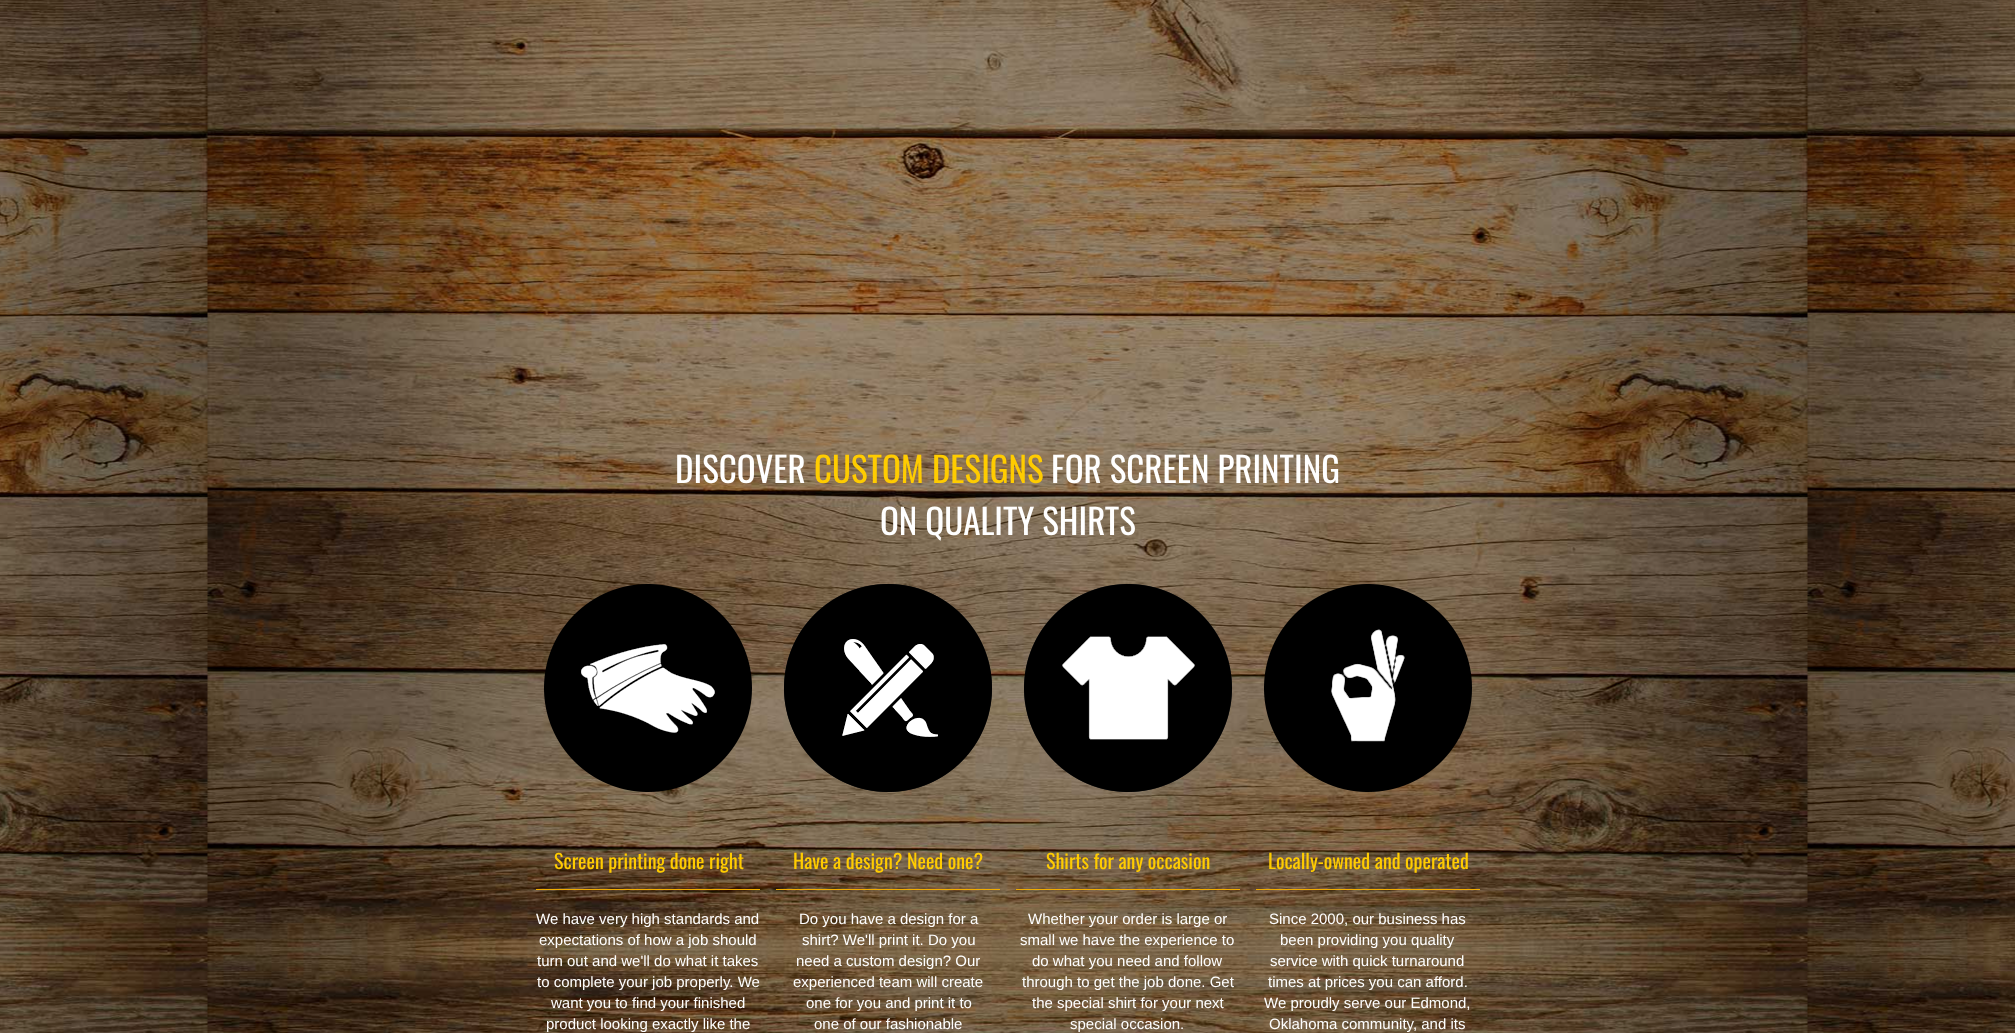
<svg xmlns="http://www.w3.org/2000/svg" xmlns:xlink="http://www.w3.org/1999/xlink" width="2015" height="1033" viewBox="0 0 2015 1033">
<style>
.cls-1{font:35px Oswald;fill:#ffffff}
.cls-2{font:35px Oswald;fill:#ffcc00}
.cls-3{font:20px Oswald;fill:#ffcc00}
.cls-4{font:15px Liberation Sans;fill:#ffffff}
</style>
<rect width="100%" height="100%" fill="#ffffff"/>
<image xlink:href="image0.png" x="0" y="0" width="2015" height="1033"/>
<image xlink:href="image1.png" x="544" y="584" width="208" height="208"/>
<image xlink:href="image2.png" x="784" y="584" width="208" height="208"/>
<image xlink:href="image3.png" x="1024" y="584" width="208" height="208"/>
<image xlink:href="image4.png" x="1264" y="584" width="208" height="208"/>
<rect fill="#efab00" x="536" y="889" width="224" height="1"/>
<rect fill="#efab00" x="776" y="889" width="224" height="1"/>
<rect fill="#efab00" x="1016" y="889" width="224" height="1"/>
<rect fill="#efab00" x="1256" y="889" width="224" height="1"/>
<text class="cls-1" x="675" y="483">DISCOVER</text>
<text class="cls-2" x="814" y="483">CUSTOM DESIGNS</text>
<text class="cls-1" x="1051" y="483">FOR SCREEN PRINTING</text>
<text class="cls-1" x="880" y="535">ON QUALITY SHIRTS</text>
<text class="cls-3" x="554" y="869">Screen printing done right</text>
<text class="cls-3" x="793" y="869">Have a design? Need one?</text>
<text class="cls-3" x="1046" y="869">Shirts for any occasion</text>
<text class="cls-3" x="1268" y="869">Locally-owned and operated</text>
<text class="cls-4" x="536" y="924">We have very high standards and</text>
<text class="cls-4" x="539" y="945">expectations of how a job should</text>
<text class="cls-4"><tspan x="537" y="966">turn out and we'll do what it takes</tspan><tspan x="537" y="987">to complete your job properly. We</tspan></text>
<text class="cls-4" x="551" y="1008">want you to find your finished</text>
<text class="cls-4" x="546" y="1029">product looking exactly like the</text>
<text class="cls-4" x="799" y="924">Do you have a design for a</text>
<text class="cls-4" x="802" y="945">shirt? We'll print it. Do you</text>
<text class="cls-4" x="796" y="966">need a custom design? Our</text>
<text class="cls-4" x="793" y="987">experienced team will create</text>
<text class="cls-4" x="806" y="1008">one for you and print it to</text>
<text class="cls-4" x="814" y="1029">one of our fashionable</text>
<text class="cls-4" x="1028" y="924">Whether your order is large or</text>
<text class="cls-4" x="1020" y="945">small we have the experience to</text>
<text class="cls-4" x="1032" y="966">do what you need and follow</text>
<text class="cls-4" x="1022" y="987">through to get the job done. Get</text>
<text class="cls-4" x="1032" y="1008">the special shirt for your next</text>
<text class="cls-4" x="1070" y="1029">special occasion.</text>
<text class="cls-4" x="1269" y="924">Since 2000, our business has</text>
<text class="cls-4" x="1280" y="945">been providing you quality</text>
<text class="cls-4" x="1270" y="966">service with quick turnaround</text>
<text class="cls-4" x="1268" y="987">times at prices you can afford.</text>
<text class="cls-4" x="1264" y="1008">We proudly serve our Edmond,</text>
<text class="cls-4" x="1269" y="1029">Oklahoma community, and its</text>
</svg>
